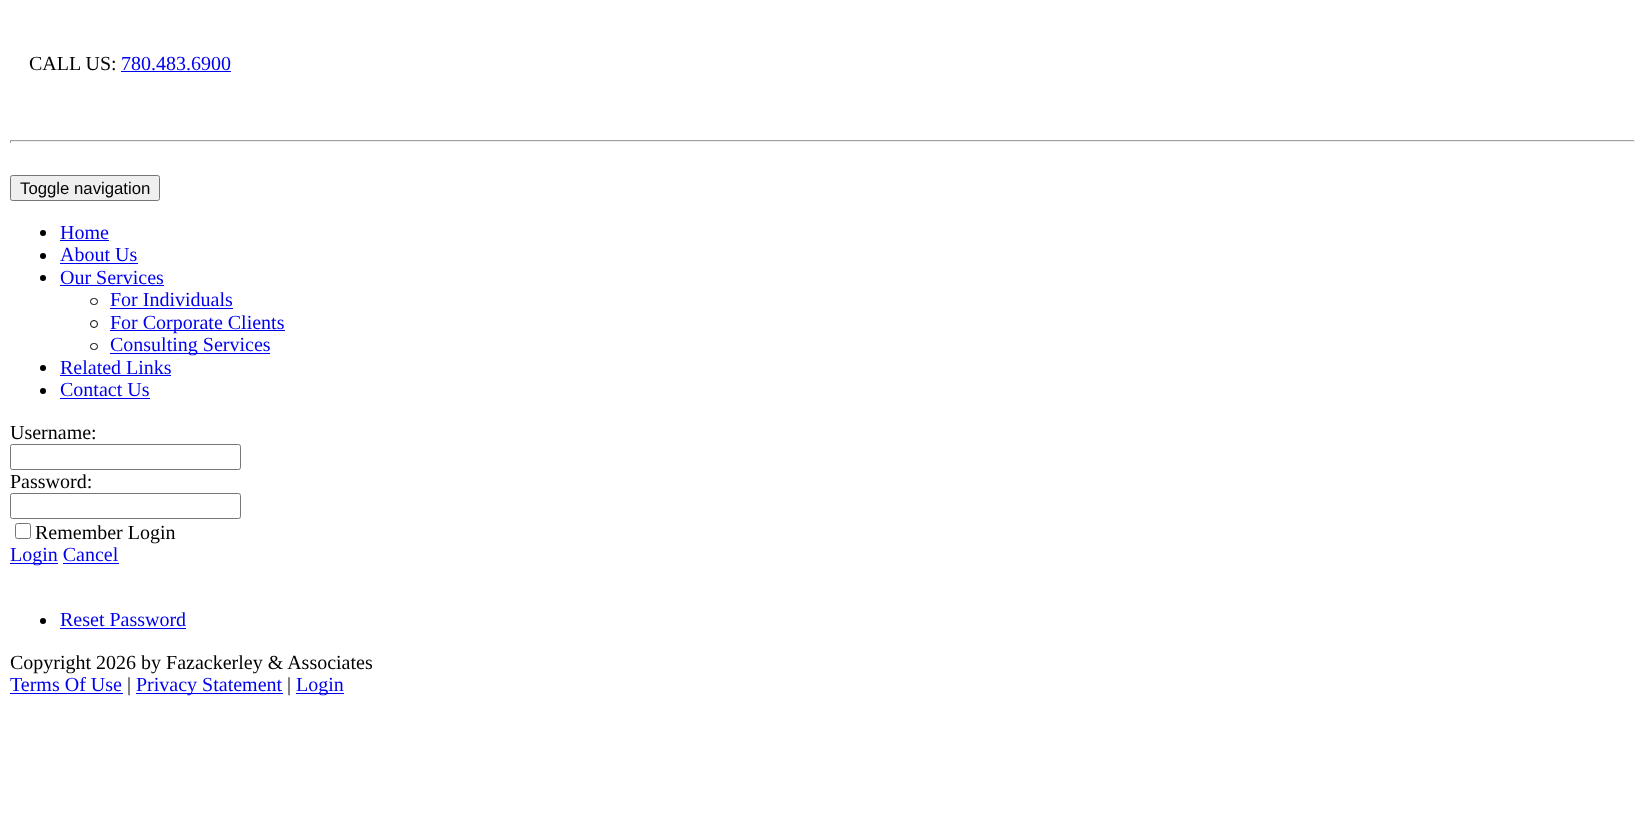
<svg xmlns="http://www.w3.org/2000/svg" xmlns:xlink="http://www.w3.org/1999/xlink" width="1644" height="825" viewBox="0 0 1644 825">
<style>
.cls-1{font:20px Liberation Serif;fill:#000000}
.cls-2{font:20px Liberation Serif;fill:#0000ee}
.cls-3{font:16.75px Liberation Sans;fill:#000000}
</style>
<rect width="100%" height="100%" fill="#ffffff"/>
<rect fill="#0000ee" x="121" y="71" width="110" height="1"/>
<rect fill="#9f9f9f" x="10" y="140" width="1625" height="1"/>
<rect fill="#eeeeee" x="1634" y="140" width="1" height="3"/>
<rect fill="#eeeeee" x="10" y="141" width="1625" height="1"/>
<rect fill="#9f9f9f" x="10" y="140" width="1" height="3"/>
<rect fill="#efefef" stroke="#767676" x="10.5" y="175.5" width="149" height="25" rx="2"/>
<circle fill="#000000" cx="43" cy="233" r="3"/>
<rect fill="#0000ee" x="60" y="240" width="49" height="1"/>
<circle fill="#000000" cx="43" cy="256" r="3"/>
<rect fill="#0000ee" x="60" y="263" width="78" height="1"/>
<circle fill="#000000" cx="43" cy="278" r="3"/>
<rect fill="#0000ee" x="60" y="285" width="104" height="1"/>
<rect fill="none" stroke="#000000" x="90.5" y="298.5" width="7" height="6" rx="3"/>
<rect fill="#0000ee" x="110" y="308" width="123" height="1"/>
<circle fill="none" stroke="#000000" cx="94" cy="324" r="3.5"/>
<rect fill="#0000ee" x="110" y="330" width="175" height="1"/>
<rect fill="none" stroke="#000000" x="90.5" y="343.5" width="7" height="6" rx="3"/>
<rect fill="#0000ee" x="110" y="353" width="160" height="1"/>
<circle fill="#000000" cx="43" cy="368" r="3"/>
<rect fill="#0000ee" x="60" y="375" width="111" height="1"/>
<circle fill="#000000" cx="43" cy="391" r="3"/>
<rect fill="#0000ee" x="60" y="398" width="90" height="1"/>
<rect fill="none" stroke="#767676" x="10.5" y="444.5" width="230" height="25" rx="2"/>
<rect fill="none" stroke="#767676" x="10.5" y="493.5" width="230" height="25" rx="2"/>
<rect fill="none" stroke="#767676" x="15.5" y="523.5" width="15" height="15" rx="2"/>
<rect fill="#0000ee" x="10" y="563" width="48" height="1"/>
<rect fill="#0000ee" x="63" y="563" width="56" height="1"/>
<circle fill="#000000" cx="43" cy="621" r="3"/>
<rect fill="#0000ee" x="60" y="628" width="126" height="1"/>
<rect fill="#0000ee" x="10" y="693" width="113" height="1"/>
<rect fill="#0000ee" x="136" y="693" width="147" height="1"/>
<rect fill="#0000ee" x="296" y="693" width="48" height="1"/>
<text class="cls-1" x="29" y="70">CALL US:</text>
<text class="cls-2" x="121" y="70">780.483.6900</text>
<text class="cls-3" x="20" y="194">Toggle navigation</text>
<text class="cls-2"><tspan x="60" y="239">Home</tspan><tspan x="60" y="261">About Us</tspan><tspan x="60" y="284">Our Services</tspan></text>
<text class="cls-2"><tspan x="110" y="306">For Individuals</tspan><tspan x="110" y="329">For Corporate Clients</tspan><tspan x="110" y="351">Consulting Services</tspan></text>
<text class="cls-2"><tspan x="60" y="374">Related Links</tspan><tspan x="60" y="396">Contact Us</tspan></text>
<text class="cls-1" x="10" y="439">Username:</text>
<text class="cls-1" x="10" y="488">Password:</text>
<text class="cls-1" x="35" y="539">Remember Login</text>
<text class="cls-2" x="10" y="561">Login Cancel</text>
<text class="cls-2" x="60" y="626">Reset Password</text>
<text class="cls-1" x="10" y="669">Copyright 2026 by Fazackerley &amp; Associates</text>
<text class="cls-2" x="10" y="691">Terms Of Use</text>
<text class="cls-1" x="127" y="691">|</text>
<text class="cls-2" x="136" y="691">Privacy Statement</text>
<text class="cls-1" x="287" y="691">|</text>
<text class="cls-2" x="296" y="691">Login</text>
</svg>
